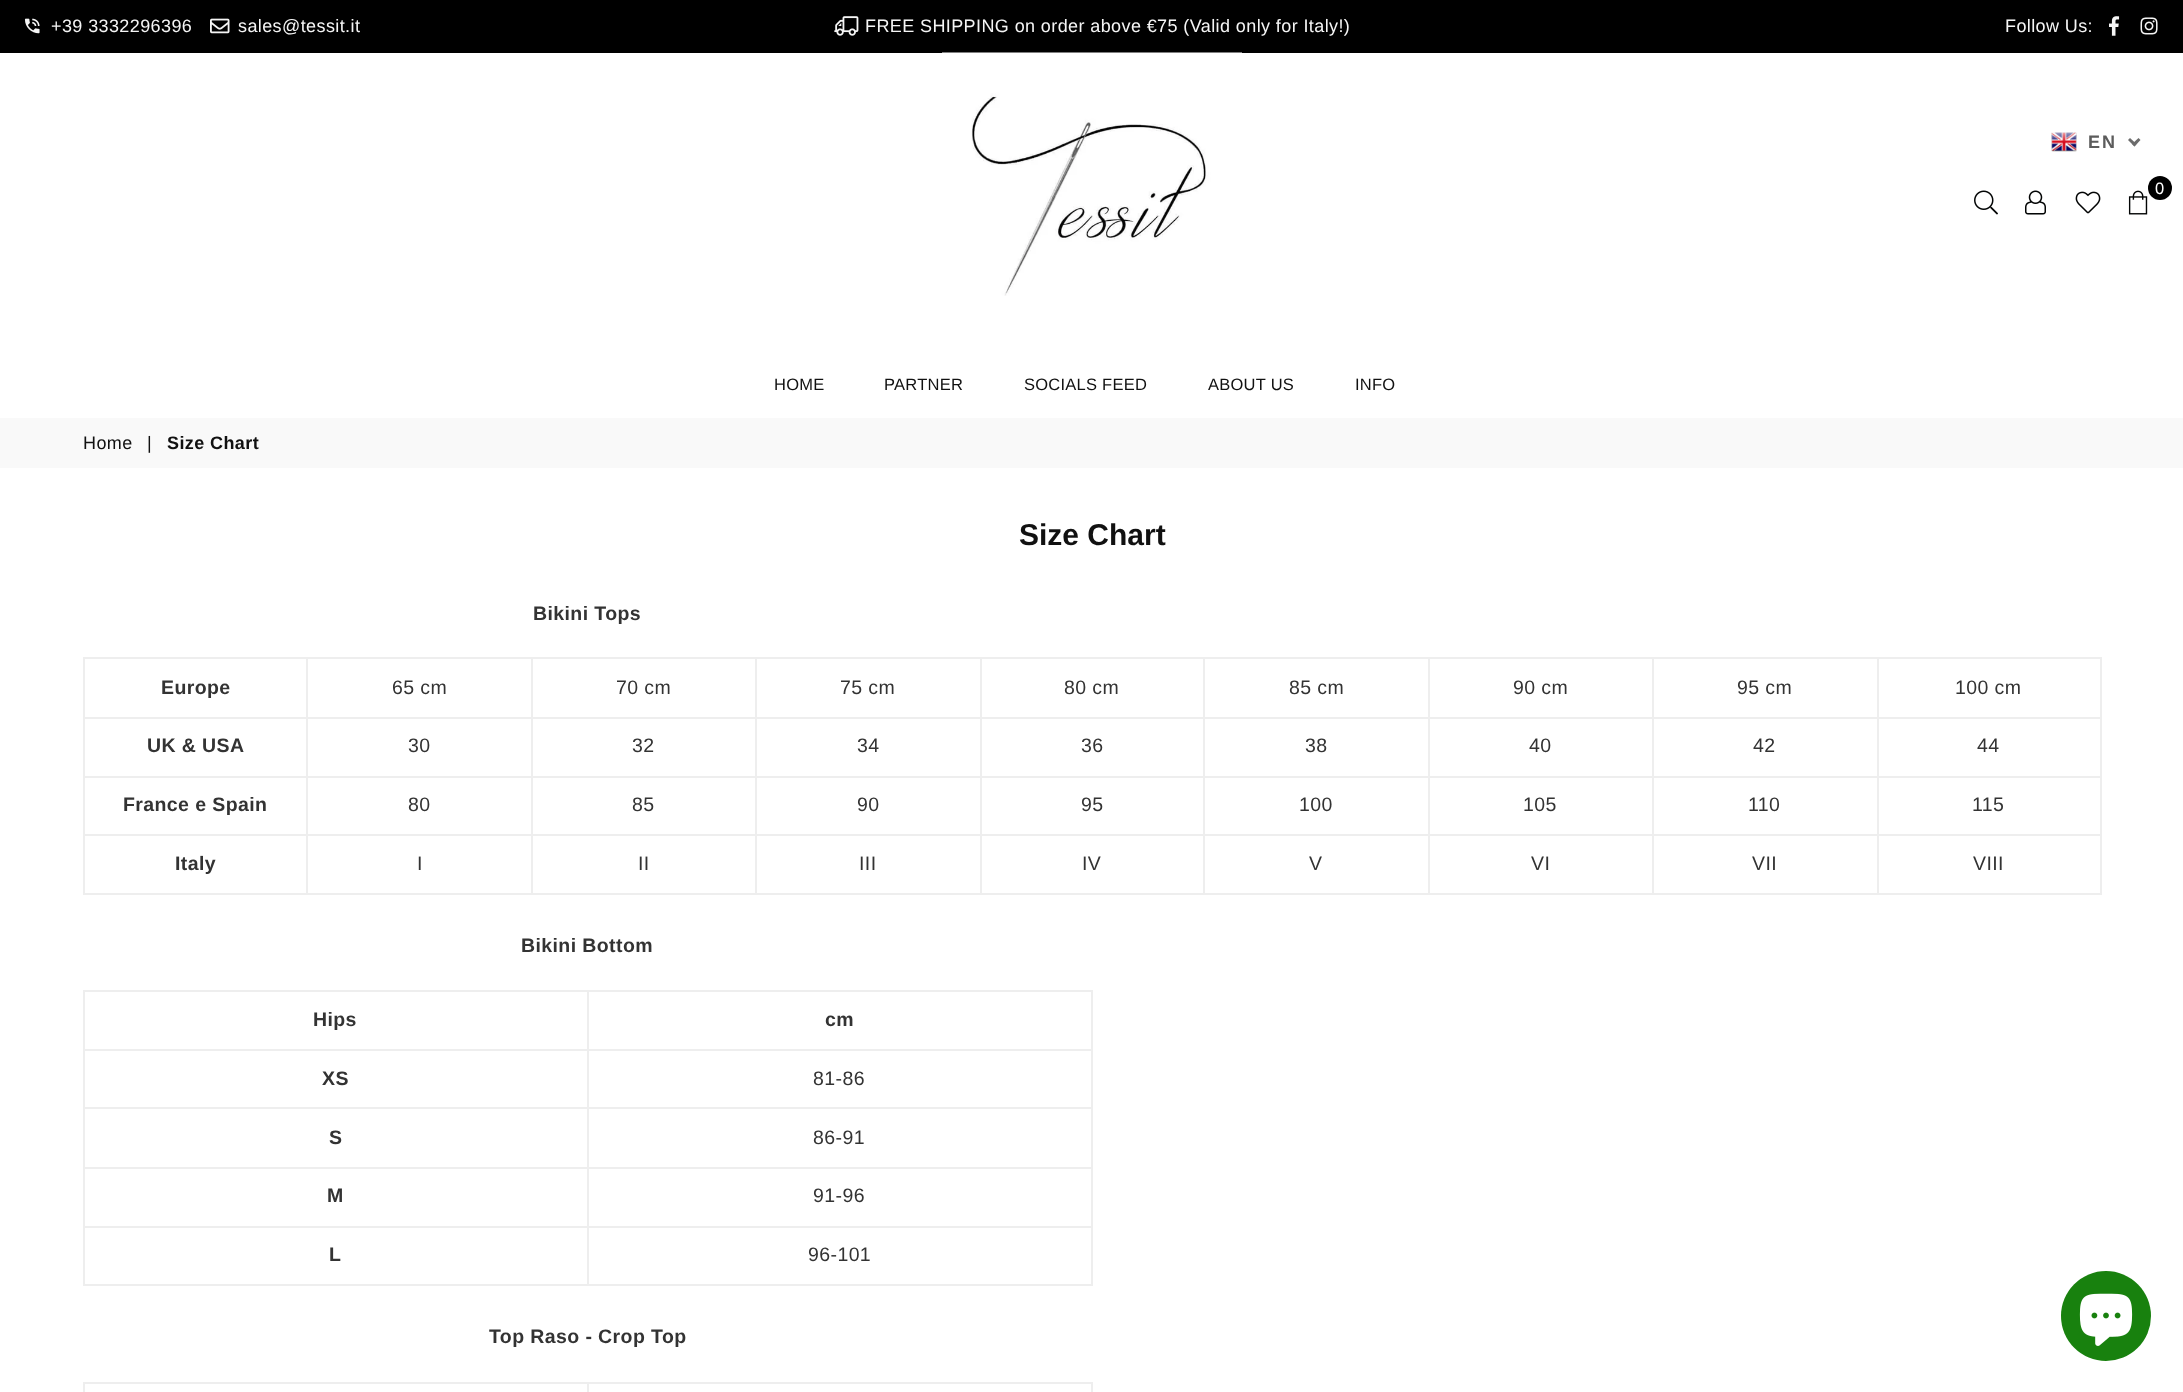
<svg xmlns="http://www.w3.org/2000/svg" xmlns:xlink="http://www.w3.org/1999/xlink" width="2183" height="1392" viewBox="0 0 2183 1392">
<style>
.cls-1{font:18px Liberation Sans;letter-spacing:0.4px;fill:#f5f5f5}
.cls-2{font:bold 18px Liberation Sans;letter-spacing:2px;fill:#5c5c5c}
.cls-3{font:16.5px Liberation Sans;letter-spacing:0.4px;fill:#ffffff}
.cls-4{font:16.5px Liberation Sans;letter-spacing:0.25px;fill:#111111}
.cls-5{font:18px Liberation Sans;letter-spacing:0.4px;fill:#111111}
.cls-6{font:bold 18px Liberation Sans;letter-spacing:0.4px;fill:#111111}
.cls-7{font:bold 30px Liberation Sans;fill:#111111}
.cls-8{font:bold 19.5px Liberation Sans;letter-spacing:0.4px;fill:#333333}
.cls-9{font:19.5px Liberation Sans;letter-spacing:0.4px;fill:#333333}
</style>
<rect width="100%" height="100%" fill="#ffffff"/>
<rect fill="#000000" x="0" y="0" width="2183" height="53"/>
<image xlink:href="image0.png" x="24" y="18" width="16" height="16"/>
<image xlink:href="image1.png" x="210" y="18" width="20" height="16"/>
<image xlink:href="image2.png" x="834" y="16" width="25" height="20"/>
<image xlink:href="image3.png" x="2109" y="16" width="11" height="20"/>
<image xlink:href="image4.png" x="2140" y="17" width="18" height="18"/>
<image xlink:href="image5.png" x="2051" y="132" width="26" height="20"/>
<path fill="#6c6c6c" d="M2138.5 138L2140.5 140L2134.5 146.5L2132 144Z"/>
<path fill="#6c6c6c" d="M2130 138L2136.5 144L2134.5 146.5L2128 140Z"/>
<image xlink:href="image6.png" x="942" y="52" width="300" height="244"/>
<circle fill="#000000" cx="2160" cy="188" r="12"/>
<image xlink:href="image7.png" x="2128" y="190" width="20" height="25"/>
<image xlink:href="image8.png" x="1974" y="190" width="24" height="25"/>
<image xlink:href="image9.png" x="2025" y="190" width="21" height="25"/>
<image xlink:href="image10.png" x="2075" y="191" width="26" height="23"/>
<rect fill="#f9f9f9" x="0" y="418" width="2183" height="50"/>
<rect fill="#eeeeee" x="1877" y="657" width="225" height="2"/>
<rect fill="#eeeeee" x="1877" y="717" width="225" height="2"/>
<rect fill="#eeeeee" x="1877" y="776" width="225" height="2"/>
<rect fill="#eeeeee" x="1877" y="834" width="225" height="2"/>
<rect fill="#eeeeee" x="2100" y="834" width="2" height="60"/>
<rect fill="#eeeeee" x="1877" y="893" width="225" height="2"/>
<rect fill="#eeeeee" x="1877" y="834" width="2" height="60"/>
<rect fill="#eeeeee" x="1652" y="834" width="226" height="2"/>
<rect fill="#eeeeee" x="1877" y="776" width="2" height="60"/>
<rect fill="#eeeeee" x="1652" y="776" width="226" height="2"/>
<rect fill="#eeeeee" x="1877" y="717" width="2" height="60"/>
<rect fill="#eeeeee" x="1652" y="717" width="226" height="2"/>
<rect fill="#eeeeee" x="1877" y="657" width="2" height="62"/>
<rect fill="#eeeeee" x="1652" y="657" width="226" height="2"/>
<rect fill="#eeeeee" x="1652" y="893" width="226" height="2"/>
<rect fill="#eeeeee" x="1652" y="834" width="2" height="60"/>
<rect fill="#eeeeee" x="1428" y="834" width="225" height="2"/>
<rect fill="#eeeeee" x="1652" y="776" width="2" height="60"/>
<rect fill="#eeeeee" x="1428" y="776" width="225" height="2"/>
<rect fill="#eeeeee" x="1652" y="717" width="2" height="60"/>
<rect fill="#eeeeee" x="1428" y="717" width="225" height="2"/>
<rect fill="#eeeeee" x="1652" y="657" width="2" height="62"/>
<rect fill="#eeeeee" x="1428" y="657" width="225" height="2"/>
<rect fill="#eeeeee" x="1428" y="893" width="225" height="2"/>
<rect fill="#eeeeee" x="1428" y="834" width="2" height="60"/>
<rect fill="#eeeeee" x="1203" y="834" width="227" height="2"/>
<rect fill="#eeeeee" x="1428" y="776" width="2" height="60"/>
<rect fill="#eeeeee" x="1203" y="776" width="227" height="2"/>
<rect fill="#eeeeee" x="1428" y="717" width="2" height="60"/>
<rect fill="#eeeeee" x="1203" y="717" width="227" height="2"/>
<rect fill="#eeeeee" x="1428" y="657" width="2" height="62"/>
<rect fill="#eeeeee" x="1203" y="657" width="227" height="2"/>
<rect fill="#eeeeee" x="1203" y="893" width="227" height="2"/>
<rect fill="#eeeeee" x="1203" y="834" width="2" height="60"/>
<rect fill="#eeeeee" x="980" y="834" width="225" height="2"/>
<rect fill="#eeeeee" x="1203" y="776" width="2" height="60"/>
<rect fill="#eeeeee" x="980" y="776" width="225" height="2"/>
<rect fill="#eeeeee" x="1203" y="717" width="2" height="60"/>
<rect fill="#eeeeee" x="980" y="717" width="225" height="2"/>
<rect fill="#eeeeee" x="1203" y="657" width="2" height="62"/>
<rect fill="#eeeeee" x="980" y="657" width="225" height="2"/>
<rect fill="#eeeeee" x="980" y="893" width="225" height="2"/>
<rect fill="#eeeeee" x="980" y="834" width="2" height="60"/>
<rect fill="#eeeeee" x="755" y="834" width="226" height="2"/>
<rect fill="#eeeeee" x="980" y="776" width="2" height="60"/>
<rect fill="#eeeeee" x="755" y="776" width="226" height="2"/>
<rect fill="#eeeeee" x="980" y="717" width="2" height="60"/>
<rect fill="#eeeeee" x="755" y="717" width="226" height="2"/>
<rect fill="#eeeeee" x="980" y="657" width="2" height="62"/>
<rect fill="#eeeeee" x="755" y="657" width="226" height="2"/>
<rect fill="#eeeeee" x="755" y="893" width="226" height="2"/>
<rect fill="#eeeeee" x="755" y="834" width="2" height="60"/>
<rect fill="#eeeeee" x="531" y="834" width="225" height="2"/>
<rect fill="#eeeeee" x="755" y="776" width="2" height="60"/>
<rect fill="#eeeeee" x="531" y="776" width="225" height="2"/>
<rect fill="#eeeeee" x="755" y="717" width="2" height="60"/>
<rect fill="#eeeeee" x="531" y="717" width="225" height="2"/>
<rect fill="#eeeeee" x="755" y="657" width="2" height="62"/>
<rect fill="#eeeeee" x="531" y="657" width="225" height="2"/>
<rect fill="#eeeeee" x="531" y="893" width="225" height="2"/>
<rect fill="#eeeeee" x="531" y="834" width="2" height="60"/>
<rect fill="#eeeeee" x="306" y="834" width="227" height="2"/>
<rect fill="#eeeeee" x="531" y="776" width="2" height="60"/>
<rect fill="#eeeeee" x="306" y="776" width="227" height="2"/>
<rect fill="#eeeeee" x="531" y="717" width="2" height="60"/>
<rect fill="#eeeeee" x="306" y="717" width="227" height="2"/>
<rect fill="#eeeeee" x="531" y="657" width="2" height="62"/>
<rect fill="#eeeeee" x="306" y="657" width="227" height="2"/>
<rect fill="#eeeeee" x="306" y="893" width="227" height="2"/>
<rect fill="#eeeeee" x="306" y="834" width="2" height="60"/>
<rect fill="#eeeeee" x="83" y="834" width="225" height="2"/>
<rect fill="#eeeeee" x="306" y="776" width="2" height="60"/>
<rect fill="#eeeeee" x="83" y="776" width="225" height="2"/>
<rect fill="#eeeeee" x="306" y="717" width="2" height="60"/>
<rect fill="#eeeeee" x="83" y="717" width="225" height="2"/>
<rect fill="#eeeeee" x="306" y="657" width="2" height="62"/>
<rect fill="#eeeeee" x="83" y="657" width="225" height="2"/>
<rect fill="#eeeeee" x="83" y="893" width="225" height="2"/>
<rect fill="#eeeeee" x="83" y="834" width="2" height="60"/>
<rect fill="#eeeeee" x="83" y="776" width="2" height="60"/>
<rect fill="#eeeeee" x="83" y="717" width="2" height="60"/>
<rect fill="#eeeeee" x="83" y="657" width="2" height="62"/>
<rect fill="#eeeeee" x="2100" y="776" width="2" height="60"/>
<rect fill="#eeeeee" x="2100" y="717" width="2" height="60"/>
<rect fill="#eeeeee" x="2100" y="657" width="2" height="62"/>
<rect fill="#eeeeee" x="587" y="990" width="505" height="2"/>
<rect fill="#eeeeee" x="587" y="1049" width="505" height="2"/>
<rect fill="#eeeeee" x="587" y="1107" width="505" height="2"/>
<rect fill="#eeeeee" x="587" y="1167" width="505" height="2"/>
<rect fill="#eeeeee" x="587" y="1226" width="505" height="2"/>
<rect fill="#eeeeee" x="1091" y="1226" width="2" height="60"/>
<rect fill="#eeeeee" x="587" y="1284" width="505" height="2"/>
<rect fill="#eeeeee" x="587" y="1226" width="2" height="60"/>
<rect fill="#eeeeee" x="83" y="1226" width="505" height="2"/>
<rect fill="#eeeeee" x="587" y="1167" width="2" height="60"/>
<rect fill="#eeeeee" x="83" y="1167" width="505" height="2"/>
<rect fill="#eeeeee" x="587" y="1107" width="2" height="62"/>
<rect fill="#eeeeee" x="83" y="1107" width="505" height="2"/>
<rect fill="#eeeeee" x="587" y="1049" width="2" height="60"/>
<rect fill="#eeeeee" x="83" y="1049" width="505" height="2"/>
<rect fill="#eeeeee" x="587" y="990" width="2" height="60"/>
<rect fill="#eeeeee" x="83" y="990" width="505" height="2"/>
<rect fill="#eeeeee" x="83" y="1284" width="505" height="2"/>
<rect fill="#eeeeee" x="83" y="1226" width="2" height="60"/>
<rect fill="#eeeeee" x="83" y="1167" width="2" height="60"/>
<rect fill="#eeeeee" x="83" y="1107" width="2" height="62"/>
<rect fill="#eeeeee" x="83" y="1049" width="2" height="60"/>
<rect fill="#eeeeee" x="83" y="990" width="2" height="60"/>
<rect fill="#eeeeee" x="1091" y="1167" width="2" height="60"/>
<rect fill="#eeeeee" x="1091" y="1107" width="2" height="62"/>
<rect fill="#eeeeee" x="1091" y="1049" width="2" height="60"/>
<rect fill="#eeeeee" x="1091" y="990" width="2" height="60"/>
<rect fill="#eeeeee" x="587" y="1382" width="505" height="2"/>
<rect fill="#eeeeee" x="587" y="1382" width="2" height="10"/>
<rect fill="#eeeeee" x="83" y="1382" width="505" height="2"/>
<rect fill="#eeeeee" x="83" y="1382" width="2" height="10"/>
<rect fill="#eeeeee" x="1091" y="1382" width="2" height="10"/>
<circle fill="#18810e" cx="2106" cy="1316" r="45"/>
<image xlink:href="image11.png" x="2079" y="1293" width="54" height="53"/>
<text class="cls-1" x="51" y="32">+39 3332296396</text>
<text class="cls-1" x="238" y="32">sales@tessit.it</text>
<text class="cls-1" x="865" y="32">FREE SHIPPING on order above €75 (Valid only for Italy!)</text>
<text class="cls-1" x="2005" y="32">Follow Us:</text>
<text class="cls-2" x="2088" y="148">EN</text>
<text class="cls-3" x="2155" y="194">0</text>
<text class="cls-4" x="774" y="390">HOME</text>
<text class="cls-4" x="884" y="390">PARTNER</text>
<text class="cls-4" x="1024" y="390">SOCIALS FEED</text>
<text class="cls-4" x="1208" y="390">ABOUT US</text>
<text class="cls-4" x="1355" y="390">INFO</text>
<text class="cls-5" x="83" y="449">Home</text>
<text class="cls-5" x="147" y="449">|</text>
<text class="cls-6" x="167" y="449">Size Chart</text>
<text class="cls-7" x="1019" y="545">Size Chart</text>
<text class="cls-8" x="533" y="620">Bikini Tops</text>
<text class="cls-8" x="161" y="694">Europe</text>
<text class="cls-9" x="392" y="694">65 cm</text>
<text class="cls-9" x="616" y="694">70 cm</text>
<text class="cls-9" x="840" y="694">75 cm</text>
<text class="cls-9" x="1064" y="694">80 cm</text>
<text class="cls-9" x="1289" y="694">85 cm</text>
<text class="cls-9" x="1513" y="694">90 cm</text>
<text class="cls-9" x="1737" y="694">95 cm</text>
<text class="cls-9" x="1955" y="694">100 cm</text>
<text class="cls-8" x="147" y="752">UK &amp; USA</text>
<text class="cls-9" x="408" y="752">30</text>
<text class="cls-9" x="632" y="752">32</text>
<text class="cls-9" x="857" y="752">34</text>
<text class="cls-9" x="1081" y="752">36</text>
<text class="cls-9" x="1305" y="752">38</text>
<text class="cls-9" x="1529" y="752">40</text>
<text class="cls-9" x="1753" y="752">42</text>
<text class="cls-9" x="1977" y="752">44</text>
<text class="cls-8" x="123" y="811">France e Spain</text>
<text class="cls-9" x="408" y="811">80</text>
<text class="cls-9" x="632" y="811">85</text>
<text class="cls-9" x="857" y="811">90</text>
<text class="cls-9" x="1081" y="811">95</text>
<text class="cls-9" x="1299" y="811">100</text>
<text class="cls-9" x="1523" y="811">105</text>
<text class="cls-9" x="1748" y="811">110</text>
<text class="cls-9" x="1972" y="811">115</text>
<text class="cls-8" x="175" y="870">Italy</text>
<text class="cls-9" x="417" y="870">I</text>
<text class="cls-9" x="638" y="870">II</text>
<text class="cls-9" x="859" y="870">III</text>
<text class="cls-9" x="1082" y="870">IV</text>
<text class="cls-9" x="1309" y="870">V</text>
<text class="cls-9" x="1531" y="870">VI</text>
<text class="cls-9" x="1752" y="870">VII</text>
<text class="cls-9" x="1973" y="870">VIII</text>
<text class="cls-8" x="521" y="952">Bikini Bottom</text>
<text class="cls-8" x="313" y="1026">Hips</text>
<text class="cls-8" x="825" y="1026">cm</text>
<text class="cls-8" x="322" y="1085">XS</text>
<text class="cls-9" x="813" y="1085">81-86</text>
<text class="cls-8" x="329" y="1144">S</text>
<text class="cls-9" x="813" y="1144">86-91</text>
<text class="cls-8" x="327" y="1202">M</text>
<text class="cls-9" x="813" y="1202">91-96</text>
<text class="cls-8" x="329" y="1261">L</text>
<text class="cls-9" x="808" y="1261">96-101</text>
<text class="cls-8" x="489" y="1343">Top Raso - Crop Top</text>
</svg>
